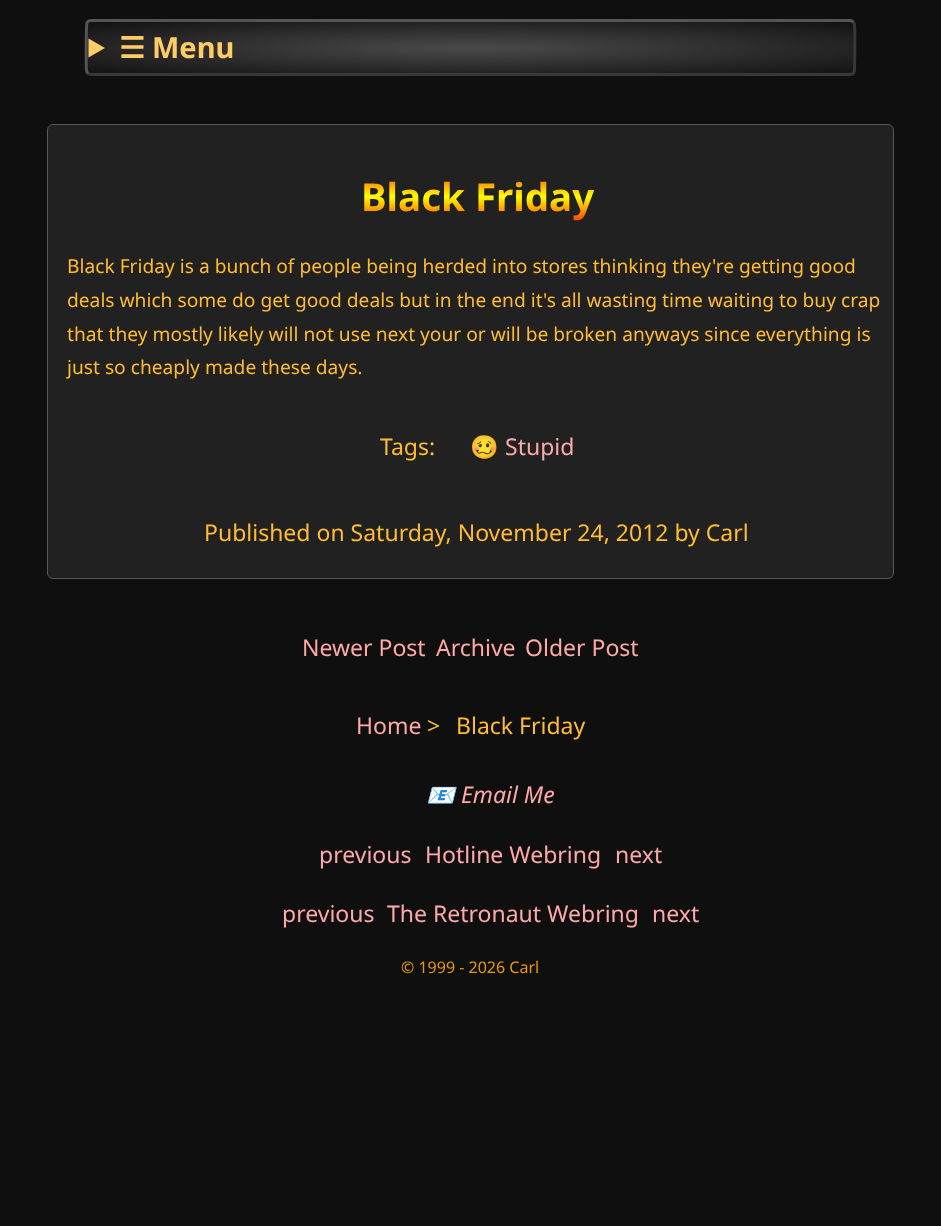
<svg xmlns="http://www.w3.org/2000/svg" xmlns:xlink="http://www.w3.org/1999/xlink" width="941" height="1226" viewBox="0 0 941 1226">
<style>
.cls-1{font:bold 29px DejaVu Sans;fill:#ffcc66}
.cls-2{font:bold 29px Noto Sans;fill:#ffcc66}
.cls-3{font:bold 38.5px Noto Sans;fill:url(#g4)}
.cls-4{font:19.2px Noto Sans;fill:#ffbb33}
.cls-5{font:23px Noto Sans;fill:#ffbb33}
.cls-6{font:23px Noto Color Emoji;fill:#ffa8a8}
.cls-7{font:23px Noto Sans;fill:#ffa8a8}
.cls-8{font:italic 23px Noto Color Emoji;fill:#ffa8a8}
.cls-9{font:italic 23px Noto Sans;fill:#ffa8a8}
.cls-10{font:16px Noto Sans;fill:#e69900}
</style>
<defs>
<clipPath id="clip1"><rect x="85" y="19" width="771" height="57" rx="6"/></clipPath>
<radialGradient id="g1" gradientUnits="userSpaceOnUse" cx="0" cy="0" r="1" gradientTransform="matrix(541 0 0 36 -294 48)"><stop offset="0.05" stop-color="#474747"/><stop offset="1" stop-color="#121212"/></radialGradient>
<radialGradient id="g2" gradientUnits="userSpaceOnUse" cx="0" cy="0" r="1" gradientTransform="matrix(541 0 0 36 471 48)"><stop offset="0.05" stop-color="#474747"/><stop offset="1" stop-color="#121212"/></radialGradient>
<radialGradient id="g3" gradientUnits="userSpaceOnUse" cx="0" cy="0" r="1" gradientTransform="matrix(541 0 0 36 1236 48)"><stop offset="0.05" stop-color="#474747"/><stop offset="1" stop-color="#121212"/></radialGradient>
<linearGradient id="g4" gradientUnits="userSpaceOnUse" x1="477" y1="230" x2="477" y2="163"><stop offset="0" stop-color="#ff0000"/><stop offset="0.5" stop-color="#ffff00"/><stop offset="1" stop-color="#ff0000"/></linearGradient>
</defs>
<rect width="100%" height="100%" fill="#0f0f0f"/>
<g clip-path="url(#clip1)">
<rect fill="url(#g1)" x="85" y="22" width="3" height="51"/>
</g>
<rect fill="url(#g2)" x="88" y="22" width="765" height="51"/>
<g clip-path="url(#clip1)">
<rect fill="url(#g3)" x="853" y="22" width="3" height="51"/>
</g>
<path fill="none" stroke="#383838" stroke-width="3" d="M853.5 21.5L854.5 24.5C855 29 855 70 854 72C853.5 73.5 852 74.5 850 74.5H91L87.5 73.5"/>
<path fill="none" stroke="#545454" stroke-width="3" d="M87.5 73.5L86.5 70.5C86 66 86 25 87 23C87.5 21.5 89 20.5 91 20.5H850L853.5 21.5"/>
<path fill="#ffcc66" d="M88.5 38.5L105 48L88.5 57.5Z"/>
<rect fill="#212121" stroke="#56565d" x="47.5" y="124.5" width="846" height="454" rx="5.5"/>
<text class="cls-1" x="119" y="58">☰</text>
<text class="cls-2" x="152" y="58">Menu</text>
<text class="cls-3" x="361" y="211">Black Friday</text>
<text class="cls-4"><tspan x="67" y="273">Black Friday is a bunch of people being herded into stores thinking they're getting good</tspan><tspan x="67" y="307">deals which some do get good deals but in the end it's all wasting time waiting to buy crap</tspan><tspan x="67" y="341">that they mostly likely will not use next your or will be broken anyways since everything is</tspan><tspan x="67" y="374">just so cheaply made these days.</tspan></text>
<text class="cls-5" x="380" y="455">Tags:</text>
<text class="cls-6" x="470" y="455">🥴</text>
<text class="cls-7" x="505" y="455">Stupid</text>
<text class="cls-5" x="204" y="541">Published on Saturday, November 24, 2012 by Carl</text>
<text class="cls-7" x="302" y="656">Newer Post</text>
<text class="cls-7" x="436" y="656">Archive</text>
<text class="cls-7" x="525" y="656">Older Post</text>
<text class="cls-7" x="356" y="734">Home</text>
<text class="cls-5" x="427" y="734">&gt;</text>
<text class="cls-5" x="456" y="734">Black Friday</text>
<text class="cls-8" x="426" y="803">📧</text>
<text class="cls-9" x="461" y="803">Email Me</text>
<text class="cls-7" x="319" y="863">previous</text>
<text class="cls-7" x="425" y="863">Hotline Webring</text>
<text class="cls-7" x="615" y="863">next</text>
<text class="cls-7" x="282" y="922">previous</text>
<text class="cls-7" x="387" y="922">The Retronaut Webring</text>
<text class="cls-7" x="652" y="922">next</text>
<text class="cls-10" x="401" y="973">© 1999 - 2026 Carl</text>
</svg>
